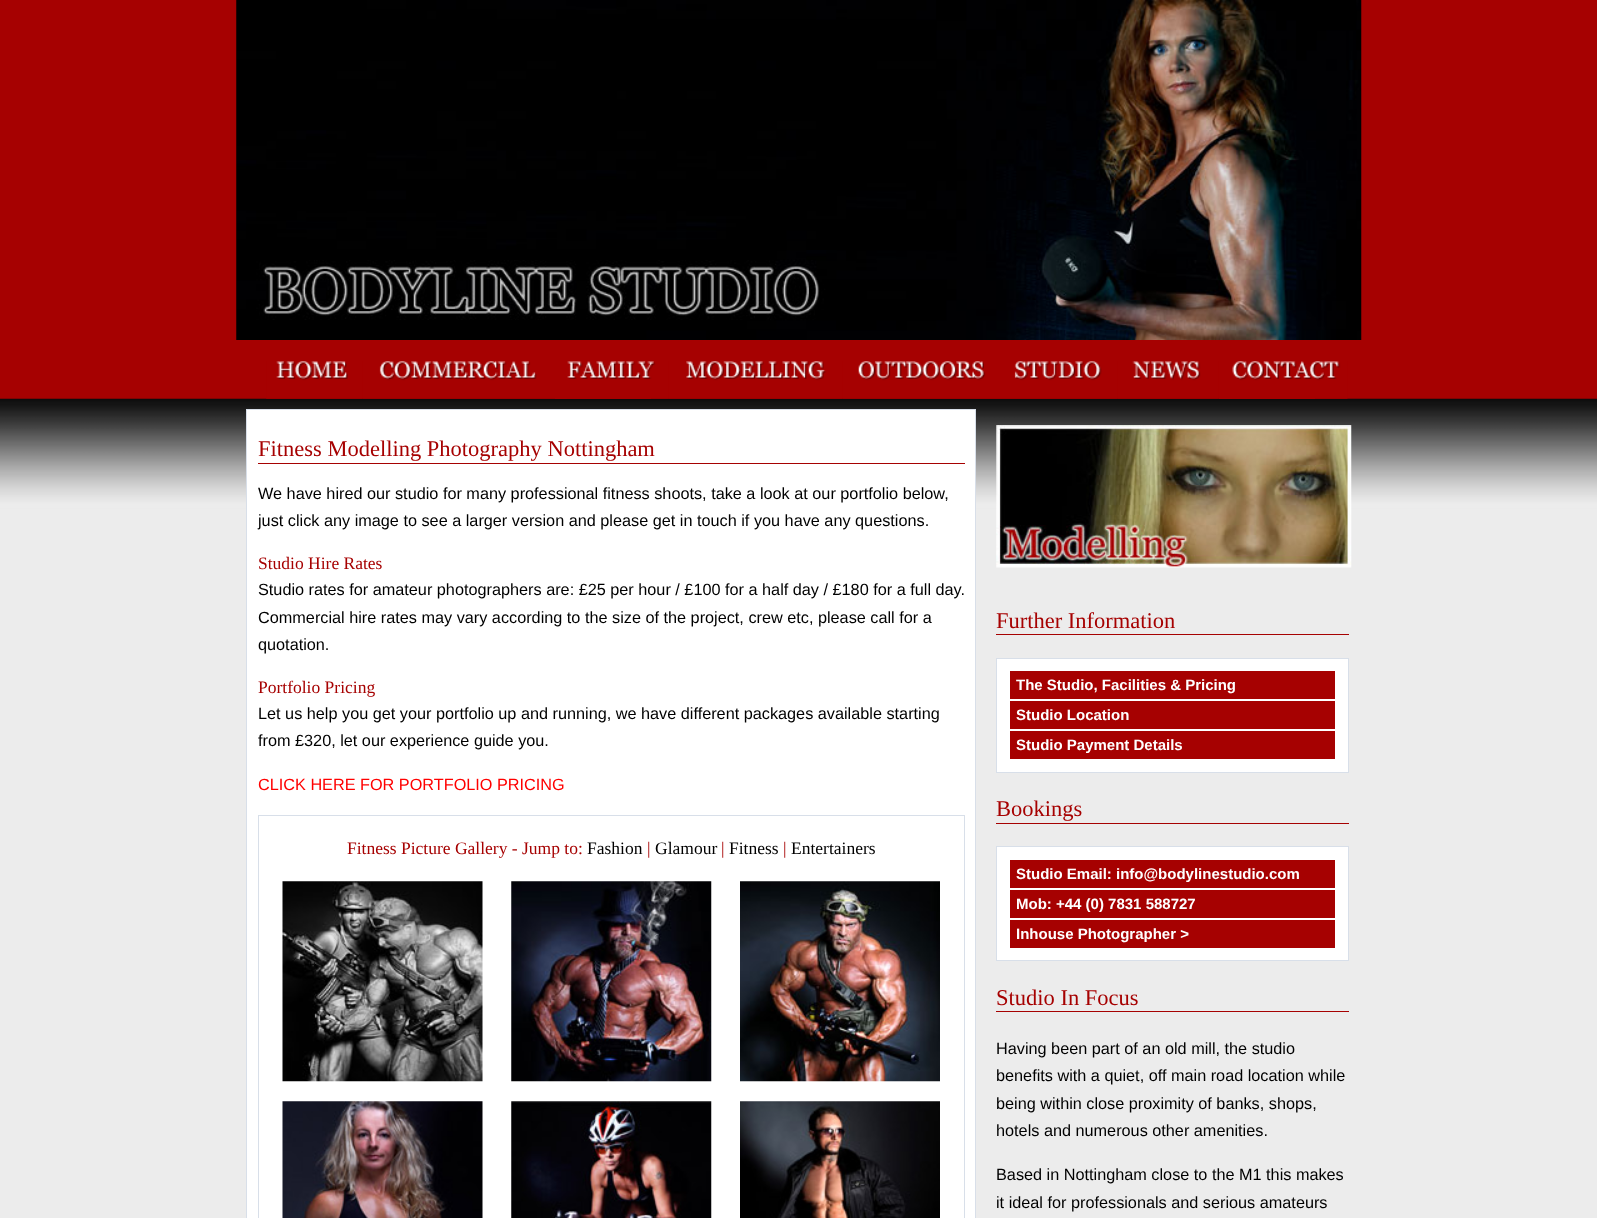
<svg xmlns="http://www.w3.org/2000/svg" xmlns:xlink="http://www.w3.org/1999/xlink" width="1597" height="1218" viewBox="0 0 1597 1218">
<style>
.cls-1{font:22.5px Liberation Serif;fill:#a60101}
.cls-2{font:16.25px Liberation Sans;fill:#000000}
.cls-3{font:17.5px Liberation Serif;fill:#a60101}
.cls-4{font:16.25px Liberation Sans;fill:#ff0000}
.cls-5{font:17.5px Liberation Serif;fill:#000000}
.cls-6{font:bold 15px Liberation Sans;fill:#ffffff}
</style>
<rect width="100%" height="100%" fill="#a60101"/>
<image xlink:href="image0.png" x="236" y="0" width="1126" height="340"/>
<image xlink:href="image9.png" x="0" y="398" width="1597" height="820"/>
<image xlink:href="image1.png" x="266" y="361" width="97" height="38"/>
<image xlink:href="image2.png" x="362" y="361" width="193" height="38"/>
<rect fill="#a60101" x="555" y="398" width="96" height="1"/>
<image xlink:href="image4.png" x="668" y="361" width="175" height="38"/>
<image xlink:href="image3.png" x="567" y="361" width="102" height="38"/>
<image xlink:href="image5.png" x="842" y="361" width="158" height="38"/>
<image xlink:href="image6.png" x="1000" y="361" width="118" height="38"/>
<image xlink:href="image7.png" x="1117" y="361" width="102" height="38"/>
<rect fill="#a60101" x="1219" y="398" width="96" height="1"/>
<image xlink:href="image8.png" x="1232" y="361" width="116" height="38"/>
<rect fill="#ffffff" stroke="#d8dfe9" x="246.5" y="409.5" width="729" height="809"/>
<rect fill="#a60101" x="258" y="463" width="707" height="1"/>
<rect fill="none" stroke="#d8dfe9" x="258.5" y="815.5" width="706" height="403"/>
<image xlink:href="image10.png" x="282" y="881" width="201" height="201"/>
<image xlink:href="image11.png" x="511" y="881" width="201" height="201"/>
<image xlink:href="image12.png" x="740" y="881" width="200" height="201"/>
<image xlink:href="image13.png" x="282" y="1101" width="201" height="117"/>
<image xlink:href="image14.png" x="511" y="1101" width="201" height="117"/>
<image xlink:href="image15.png" x="740" y="1101" width="200" height="117"/>
<image xlink:href="image16.png" x="996" y="425" width="356" height="143"/>
<rect fill="#a60101" x="996" y="634" width="353" height="1"/>
<rect fill="#ffffff" stroke="#d8dfe9" x="996.5" y="658.5" width="352" height="114"/>
<rect fill="#a60101" x="1010" y="671" width="325" height="28"/>
<rect fill="#a60101" x="1010" y="701" width="325" height="28"/>
<rect fill="#a60101" x="1010" y="731" width="325" height="28"/>
<rect fill="#a60101" x="996" y="823" width="353" height="1"/>
<rect fill="#ffffff" stroke="#d8dfe9" x="996.5" y="846.5" width="352" height="114"/>
<rect fill="#a60101" x="1010" y="860" width="325" height="28"/>
<rect fill="#a60101" x="1010" y="890" width="325" height="28"/>
<rect fill="#a60101" x="1010" y="920" width="325" height="28"/>
<rect fill="#a60101" x="996" y="1011" width="353" height="1"/>
<text class="cls-1" x="258" y="456">Fitness Modelling Photography Nottingham</text>
<text class="cls-2"><tspan x="258" y="499">We have hired our studio for many professional fitness shoots, take a look at our portfolio below,</tspan><tspan x="258" y="526">just click any image to see a larger version and please get in touch if you have any questions.</tspan></text>
<text class="cls-3" x="258" y="569">Studio Hire Rates</text>
<text class="cls-2"><tspan x="258" y="595">Studio rates for amateur photographers are: £25 per hour / £100 for a half day / £180 for a full day.</tspan><tspan x="258" y="623">Commercial hire rates may vary according to the size of the project, crew etc, please call for a</tspan><tspan x="258" y="650">quotation.</tspan></text>
<text class="cls-3" x="258" y="693">Portfolio Pricing</text>
<text class="cls-2"><tspan x="258" y="719">Let us help you get your portfolio up and running, we have different packages available starting</tspan><tspan x="258" y="746">from £320, let our experience guide you.</tspan></text>
<text class="cls-4" x="258" y="790">CLICK HERE FOR PORTFOLIO PRICING</text>
<text class="cls-3" x="347" y="854">Fitness Picture Gallery - Jump to:</text>
<text class="cls-5" x="587" y="854">Fashion</text>
<text class="cls-3" x="647" y="854">|</text>
<text class="cls-5" x="655" y="854">Glamour</text>
<text class="cls-3" x="721" y="854">|</text>
<text class="cls-5" x="729" y="854">Fitness</text>
<text class="cls-3" x="783" y="854">|</text>
<text class="cls-5" x="791" y="854">Entertainers</text>
<text class="cls-1" x="996" y="628">Further Information</text>
<text class="cls-6" x="1016" y="690">The Studio, Facilities &amp; Pricing</text>
<text class="cls-6" x="1016" y="720">Studio Location</text>
<text class="cls-6" x="1016" y="750">Studio Payment Details</text>
<text class="cls-1" x="996" y="816">Bookings</text>
<text class="cls-6" x="1016" y="879">Studio Email: info@bodylinestudio.com</text>
<text class="cls-6" x="1016" y="909">Mob: +44 (0) 7831 588727</text>
<text class="cls-6" x="1016" y="939">Inhouse Photographer &gt;</text>
<text class="cls-1" x="996" y="1005">Studio In Focus</text>
<text class="cls-2"><tspan x="996" y="1054">Having been part of an old mill, the studio</tspan><tspan x="996" y="1081">benefits with a quiet, off main road location while</tspan><tspan x="996" y="1109">being within close proximity of banks, shops,</tspan><tspan x="996" y="1136">hotels and numerous other amenities.</tspan></text>
<text class="cls-2"><tspan x="996" y="1180">Based in Nottingham close to the M1 this makes</tspan><tspan x="996" y="1208">it ideal for professionals and serious amateurs</tspan></text>
</svg>
